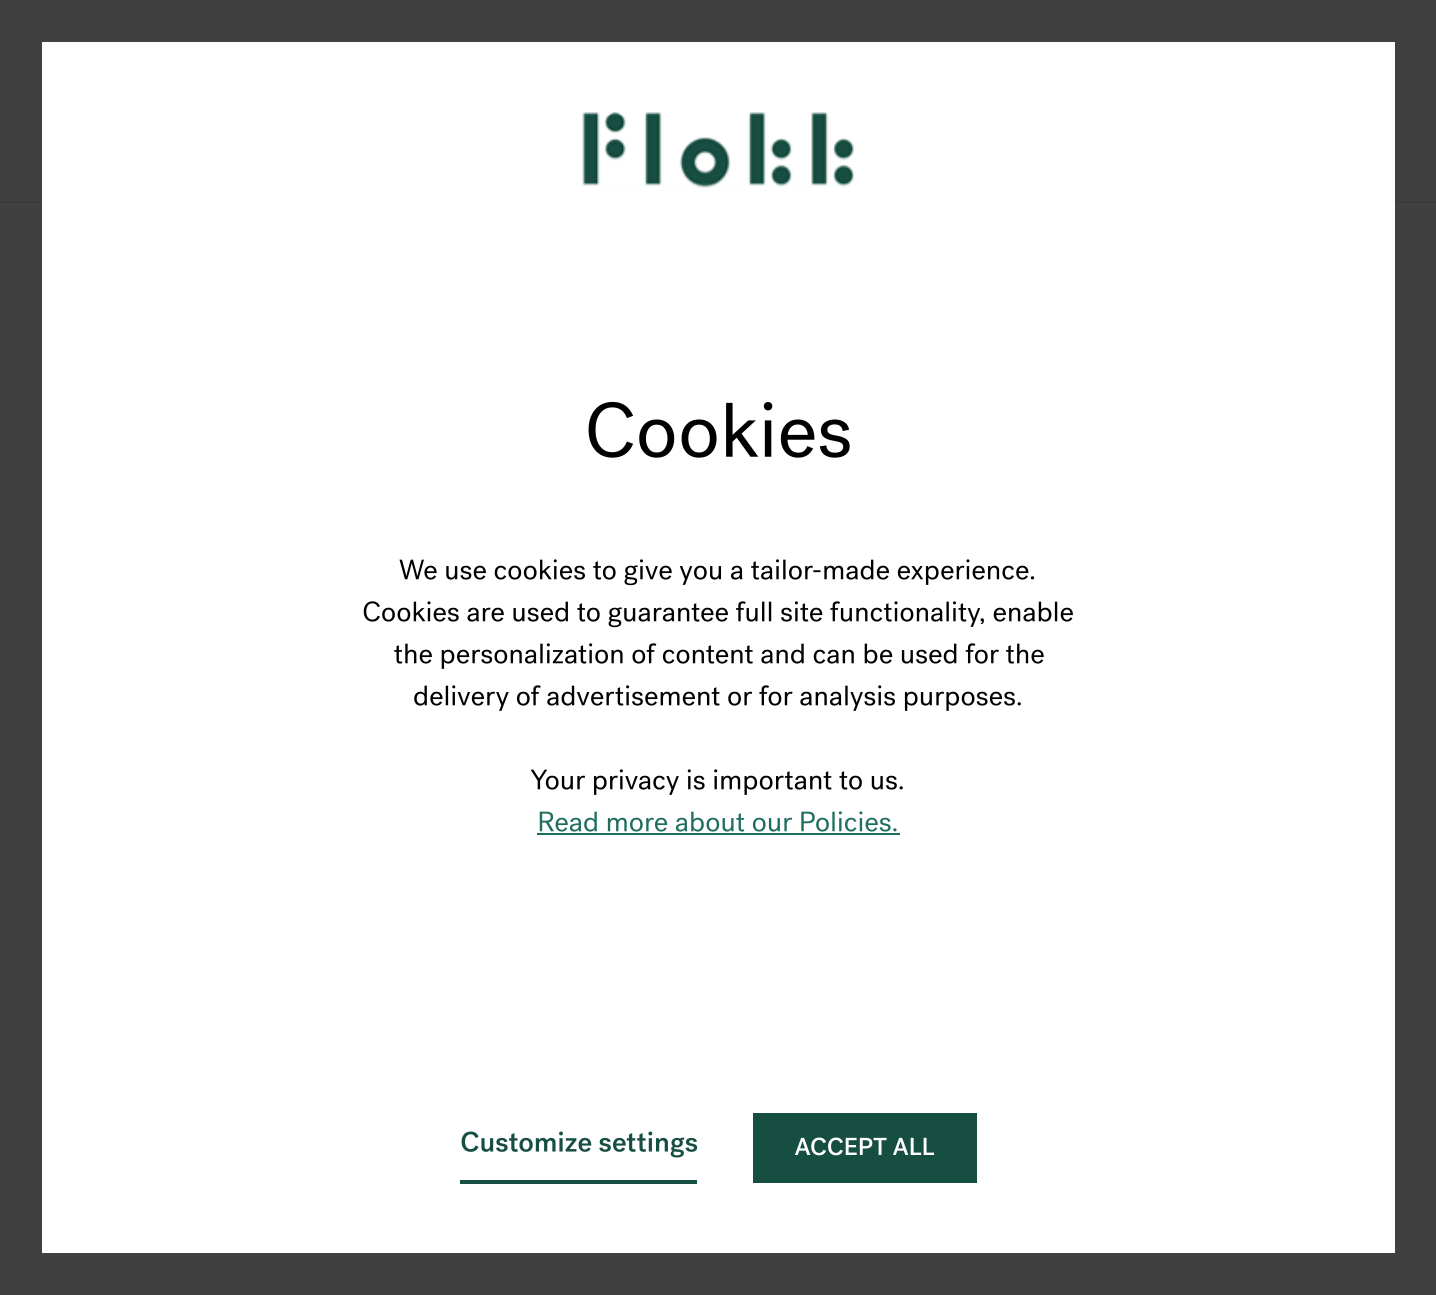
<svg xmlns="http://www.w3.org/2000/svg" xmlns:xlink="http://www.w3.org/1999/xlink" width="1436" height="1295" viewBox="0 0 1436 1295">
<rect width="100%" height="100%" fill="#404040"/>
<rect fill="#3b3b3b" x="0" y="201" width="1436" height="2"/>
<rect fill="#ffffff" x="42" y="42" width="1353" height="1211"/>
<image xlink:href="image0.png" x="582" y="112" width="272" height="76"/>
<image xlink:href="image1.png" x="588" y="401" width="262" height="57"/>
<image xlink:href="image2.png" x="399" y="559" width="636" height="27"/>
<image xlink:href="image3.png" x="363" y="601" width="710" height="27"/>
<image xlink:href="image4.png" x="394" y="643" width="650" height="26"/>
<image xlink:href="image5.png" x="414" y="685" width="607" height="26"/>
<image xlink:href="image6.png" x="530" y="769" width="373" height="26"/>
<image xlink:href="image7.png" x="539" y="811" width="358" height="21"/>
<rect fill="#1f6e5e" x="537" y="833" width="363" height="2"/>
<rect fill="#174e42" x="460" y="1180" width="237" height="4"/>
<image xlink:href="image8.png" x="461" y="1131" width="237" height="27"/>
<rect fill="#174e42" x="753" y="1113" width="224" height="70"/>
<image xlink:href="image9.png" x="795" y="1137" width="140" height="19"/>
</svg>
